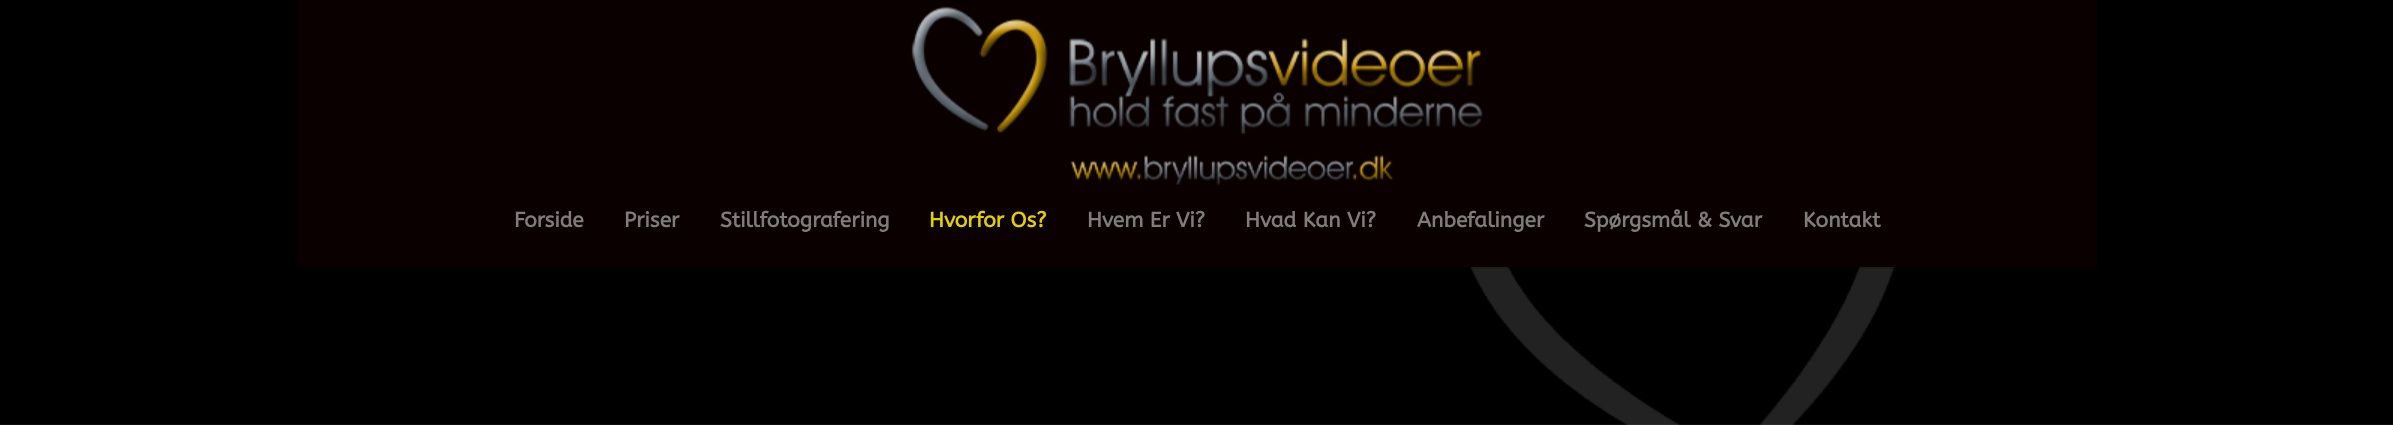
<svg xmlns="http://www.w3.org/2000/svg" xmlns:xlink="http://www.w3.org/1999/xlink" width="2393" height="425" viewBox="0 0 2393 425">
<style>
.cls-1{font:bold 21px ABeeZee;fill:#807c7c}
.cls-2{font:bold 21px ABeeZee;fill:#e2d000}
</style>
<rect width="100%" height="100%" fill="#ffffff"/>
<image xlink:href="image0.png" x="0" y="0" width="2393" height="425"/>
<rect fill="#000000" fill-opacity="0.1" x="1471" y="267" width="423" height="2"/>
<rect fill="#0a0000" x="297" y="0" width="1800" height="267"/>
<image xlink:href="image1.png" x="911" y="6" width="572" height="179"/>
<text class="cls-1" x="514" y="227">Forside</text>
<text class="cls-1" x="624" y="227">Priser</text>
<text class="cls-1" x="720" y="227">Stillfotografering</text>
<text class="cls-2" x="929" y="227">Hvorfor Os?</text>
<text class="cls-1" x="1087" y="227">Hvem Er Vi?</text>
<text class="cls-1" x="1245" y="227">Hvad Kan Vi?</text>
<text class="cls-1" x="1417" y="227">Anbefalinger</text>
<text class="cls-1" x="1584" y="227">Spørgsmål &amp; Svar</text>
<text class="cls-1" x="1803" y="227">Kontakt</text>
</svg>
